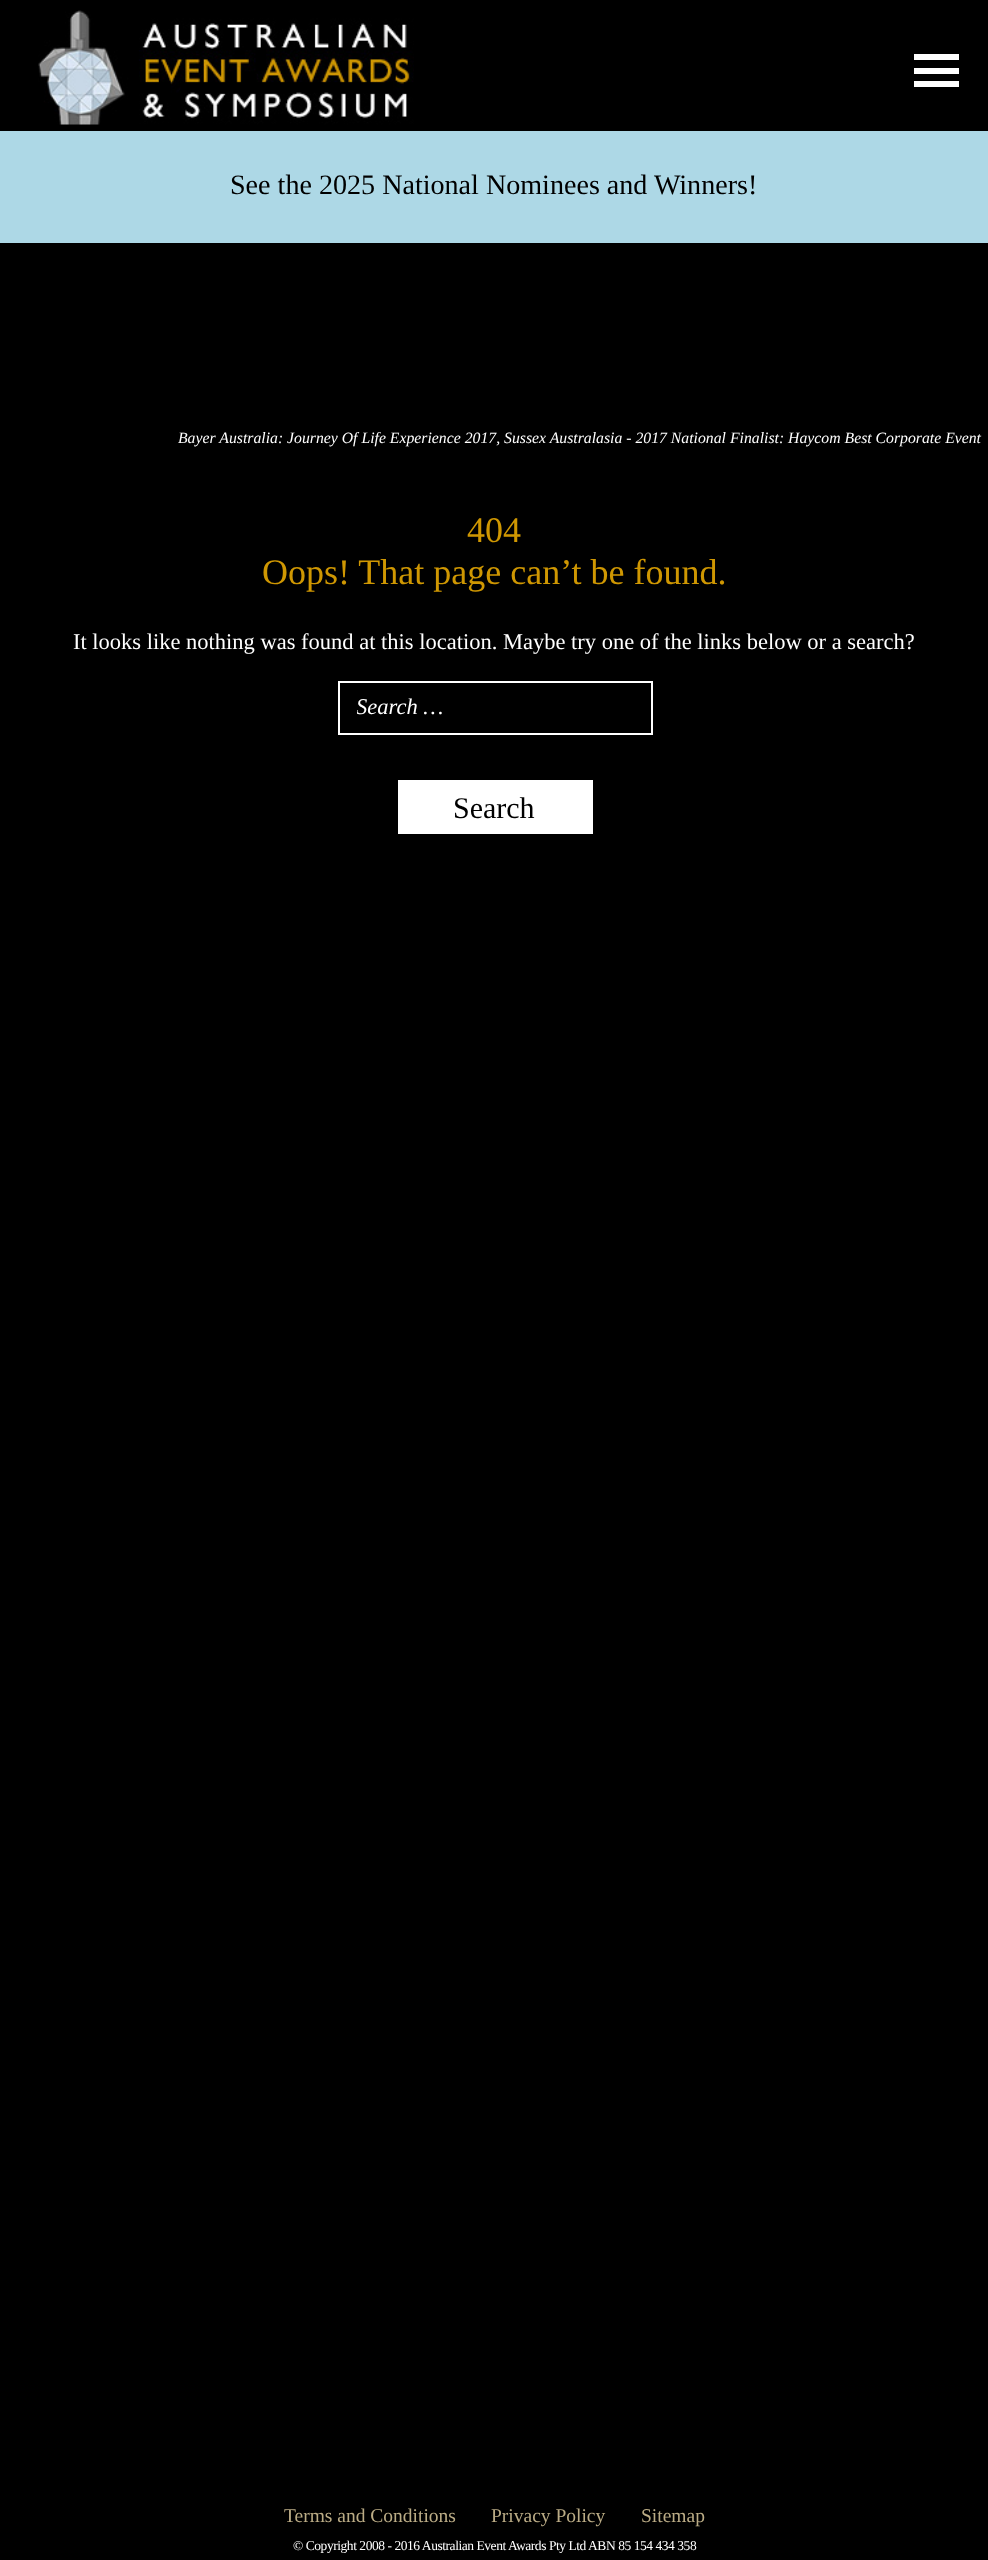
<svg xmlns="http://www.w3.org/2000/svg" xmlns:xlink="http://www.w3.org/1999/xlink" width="988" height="2560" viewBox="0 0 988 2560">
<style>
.cls-1{font:28.1px Liberation Serif;fill:#000000}
.cls-2{font:italic 15.75px Liberation Serif;fill:#ffffff}
.cls-3{font:36px Liberation Serif;fill:#cf9702}
.cls-4{font:22.5px Liberation Serif;fill:#ffffff}
.cls-5{font:italic 22.5px Liberation Serif;fill:#ffffff}
.cls-6{font:30px Liberation Serif;fill:#000000}
.cls-7{font:19.5px Liberation Serif;fill:#baab85}
.cls-8{font:13.5px Liberation Serif;letter-spacing:-0.45px;fill:#ffffff}
</style>
<defs>
<clipPath id="clip1"><rect x="357" y="695" width="270" height="25"/></clipPath>
</defs>
<rect width="100%" height="100%" fill="#000000"/>
<image xlink:href="image0.png" x="38" y="10" width="376" height="115"/>
<rect fill="#ffffff" x="914" y="54" width="45" height="6"/>
<rect fill="#ffffff" x="914" y="68" width="45" height="6"/>
<rect fill="#ffffff" x="914" y="81" width="45" height="6"/>
<rect fill="#add8e6" x="0" y="131" width="988" height="112"/>
<rect fill="none" stroke="#ffffff" stroke-width="2" x="339" y="682" width="313" height="52"/>
<rect fill="#ffffff" x="398" y="780" width="195" height="54"/>
<text class="cls-1" x="230" y="194">See the 2025 National Nominees and Winners!</text>
<text class="cls-2" x="178" y="443">Bayer Australia: Journey Of Life Experience 2017, Sussex Australasia - 2017 National Finalist: Haycom Best Corporate Event</text>
<text class="cls-3" x="467" y="542">404</text>
<text class="cls-3" x="262" y="584">Oops! That page can’t be found.</text>
<text class="cls-4" x="73" y="649">It looks like nothing was found at this location. Maybe try one of the links below or a search?</text>
<g clip-path="url(#clip1)">
<text class="cls-5" x="356" y="714">Search …</text>
</g>
<text class="cls-6" x="453" y="818">Search</text>
<text class="cls-7" x="284" y="2522">Terms and Conditions</text>
<text class="cls-7" x="491" y="2522">Privacy Policy</text>
<text class="cls-7" x="641" y="2522">Sitemap</text>
<text class="cls-8" x="293" y="2550">© Copyright 2008 - 2016 Australian Event Awards Pty Ltd ABN 85 154 434 358</text>
</svg>
